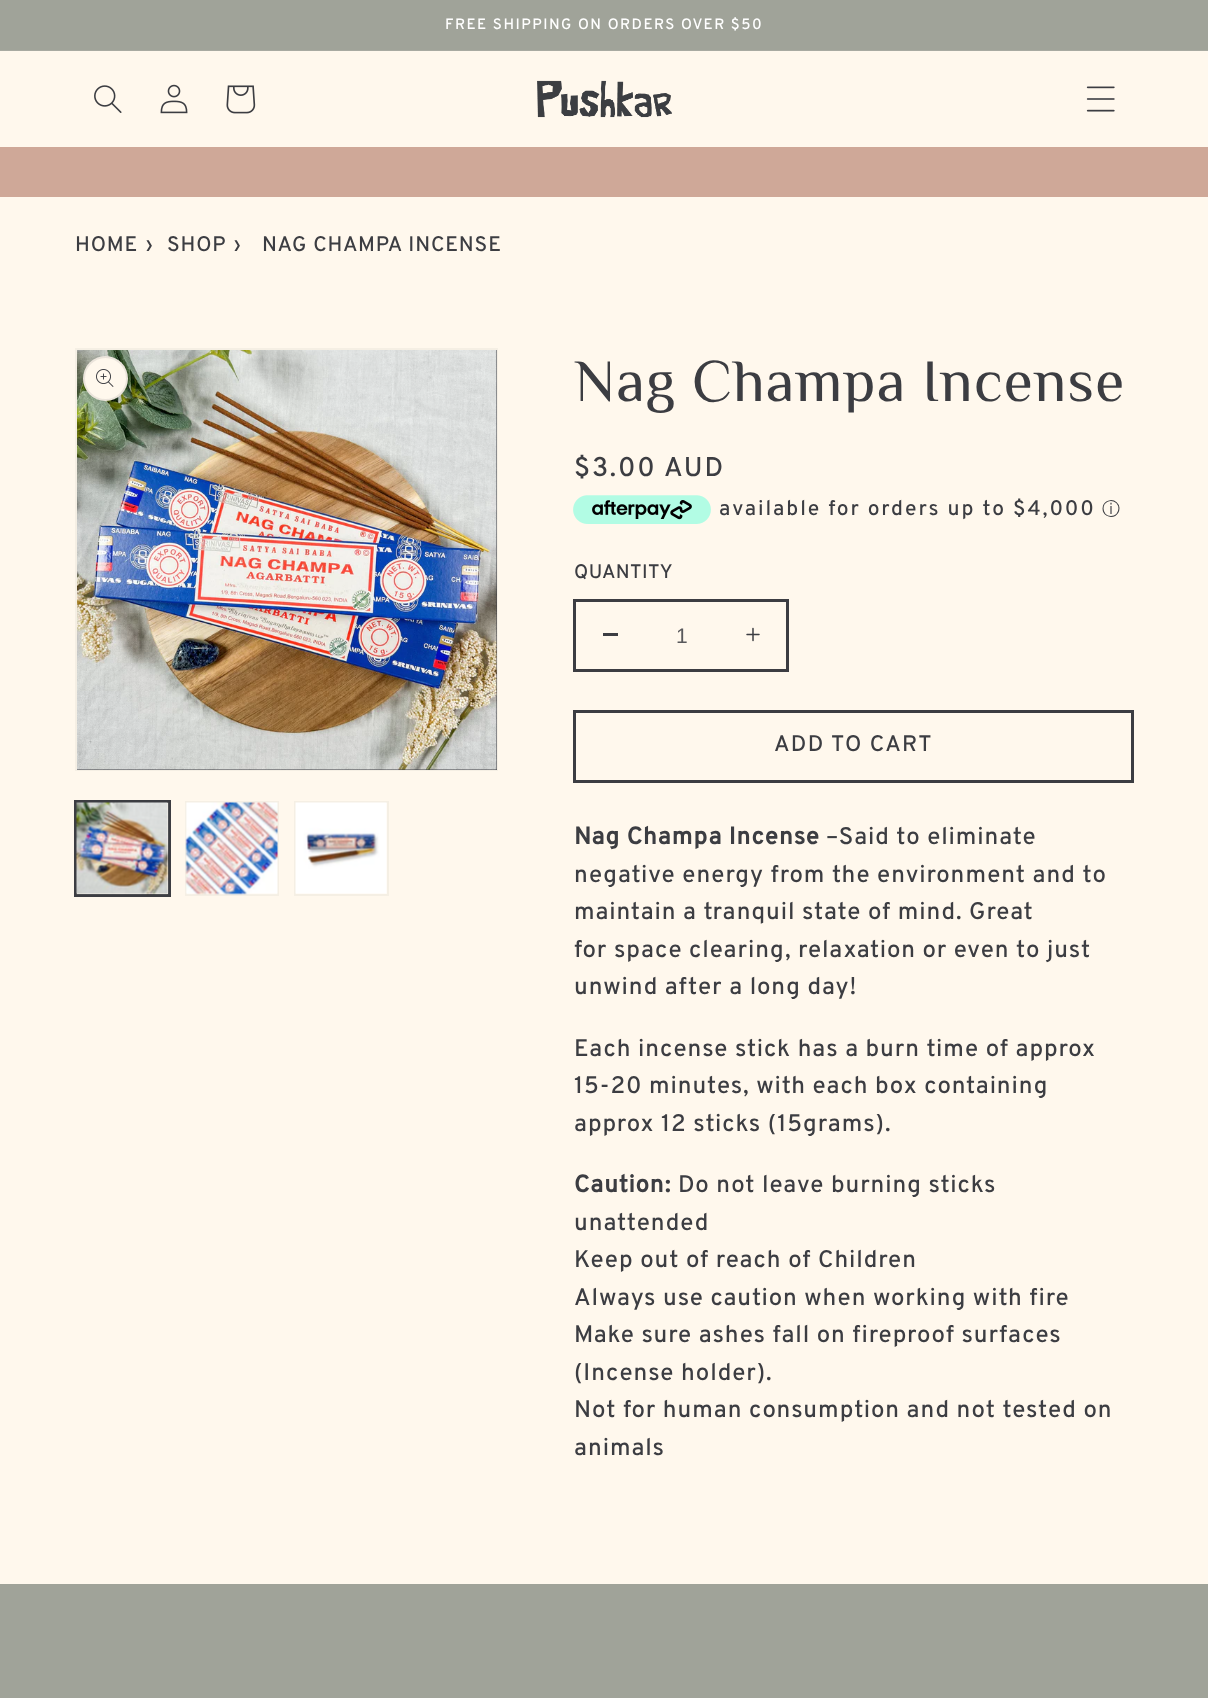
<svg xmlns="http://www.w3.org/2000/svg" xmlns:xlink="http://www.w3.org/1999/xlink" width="1208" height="1698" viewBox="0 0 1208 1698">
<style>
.cls-1{font:500 15px Overpass;letter-spacing:1.5px;fill:#ffffff}
.cls-2{font:500 21px Overpass;letter-spacing:0.9px;fill:#3c3d42}
.cls-3{font:60px El Messiri;letter-spacing:0.9px;fill:#3c3d42}
.cls-4{font:500 27px Overpass;letter-spacing:1.95px;fill:#3c3d42}
.cls-5{font:500 21px Overpass;letter-spacing:1.95px;fill:#3c3d42}
.cls-6{font:500 18px WenQuanYi Zen Hei;fill:#3c3d42}
.cls-7{font:500 19.5px Overpass;letter-spacing:0.5px;fill:#3c3d42}
.cls-8{font:21px Liberation Sans;fill:#59595c}
.cls-9{font:500 22.5px Overpass;letter-spacing:1.5px;fill:#3c3d42}
.cls-10{font:bold 24px Overpass;letter-spacing:0.9px;fill:#3c3d42}
.cls-11{font:500 24px Overpass;letter-spacing:0.9px;fill:#3c3d42}
</style>
<rect width="100%" height="100%" fill="#fff8ed"/>
<rect fill="#a0a399" x="0" y="0" width="1208" height="50"/>
<rect fill="#a8aaa1" x="0" y="50" width="1208" height="1"/>
<rect fill="#cfa898" x="0" y="147" width="1208" height="50"/>
<image xlink:href="image0.png" x="94" y="85" width="28" height="28"/>
<image xlink:href="image1.png" x="160" y="84" width="28" height="30"/>
<image xlink:href="image2.png" x="226" y="85" width="30" height="29"/>
<image xlink:href="image3.png" x="537" y="80" width="135" height="38"/>
<image xlink:href="image4.png" x="1086" y="86" width="29" height="26"/>
<rect fill="none" stroke="#f5efe4" stroke-width="2" x="76" y="349" width="421" height="421"/>
<rect fill="#3c3d42" x="77" y="350" width="420" height="420"/>
<image xlink:href="image5.png" x="77" y="350" width="420" height="420"/>
<circle fill="#fff8ed" cx="105.5" cy="378.5" r="22.5"/>
<circle fill="none" stroke="#3c3d42" stroke-opacity="0.1" stroke-width="2" cx="105.5" cy="378.5" r="21.5"/>
<image xlink:href="image6.png" x="96" y="369" width="18" height="18"/>
<rect fill="none" stroke="#3c3d42" stroke-width="2" x="75" y="801" width="95" height="95"/>
<rect fill="none" stroke="#3c3d42" stroke-width="2" x="76" y="802" width="93" height="93"/>
<image xlink:href="image7.png" x="76" y="802" width="93" height="93"/>
<rect fill="none" stroke="#f5efe4" stroke-width="2" x="186" y="802" width="92" height="93"/>
<image xlink:href="image8.png" x="185" y="802" width="93" height="93"/>
<rect fill="none" stroke="#f5efe4" stroke-width="2" x="295" y="802" width="93" height="93"/>
<image xlink:href="image9.png" x="295" y="802" width="92" height="92"/>
<image xlink:href="image10.png" x="573" y="495" width="138" height="29"/>
<rect fill="#3c3d42" x="603" y="633" width="15" height="3"/>
<image xlink:href="image11.png" x="746" y="627" width="14" height="15"/>
<rect fill="none" stroke="#3c3d42" stroke-width="3" x="574.5" y="600.5" width="213" height="70"/>
<rect fill="none" stroke="#3c3d42" stroke-width="3" x="574.5" y="711.5" width="558" height="70"/>
<rect fill="#a0a399" x="0" y="1584" width="1208" height="114"/>
<text class="cls-1" x="445" y="29">FREE SHIPPING ON ORDERS OVER $50</text>
<text class="cls-2" x="75" y="251">HOME</text>
<text class="cls-2" x="146" y="251">›</text>
<text class="cls-2" x="167" y="251">SHOP</text>
<text class="cls-2" x="234" y="251">›</text>
<text class="cls-2" x="262" y="251">NAG CHAMPA INCENSE</text>
<text class="cls-3" x="574" y="401">Nag Champa Incense</text>
<text class="cls-4" x="574" y="476">$3.00 AUD</text>
<text class="cls-5" x="719" y="515">available for orders up to $4,000</text>
<text class="cls-6" x="1102" y="515">ⓘ</text>
<text class="cls-7" x="574" y="578">QUANTITY</text>
<text class="cls-8" x="676" y="643">1</text>
<text class="cls-9" x="774" y="751">ADD TO CART</text>
<text class="cls-10" x="574" y="844">Nag Champa Incense</text>
<text class="cls-11" x="826" y="844">–Said to eliminate</text>
<text class="cls-11"><tspan x="574" y="882">negative energy from the environment and to</tspan><tspan x="574" y="919">maintain a tranquil state of mind. Great</tspan><tspan x="574" y="957">for space clearing, relaxation or even to just</tspan><tspan x="574" y="994">unwind after a long day!</tspan></text>
<text class="cls-11"><tspan x="574" y="1056">Each incense stick has a burn time of approx</tspan><tspan x="574" y="1093">15-20 minutes, with each box containing</tspan><tspan x="574" y="1131">approx 12 sticks (15grams).</tspan></text>
<text class="cls-10" x="574" y="1192">Caution:</text>
<text class="cls-11" x="678" y="1192">Do not leave burning sticks</text>
<text class="cls-11"><tspan x="574" y="1230">unattended</tspan><tspan x="574" y="1267">Keep out of reach of Children</tspan><tspan x="574" y="1305">Always use caution when working with fire</tspan><tspan x="574" y="1342">Make sure ashes fall on fireproof surfaces</tspan><tspan x="574" y="1380">(Incense holder).</tspan><tspan x="574" y="1417">Not for human consumption and not tested on</tspan><tspan x="574" y="1455">animals</tspan></text>
</svg>
